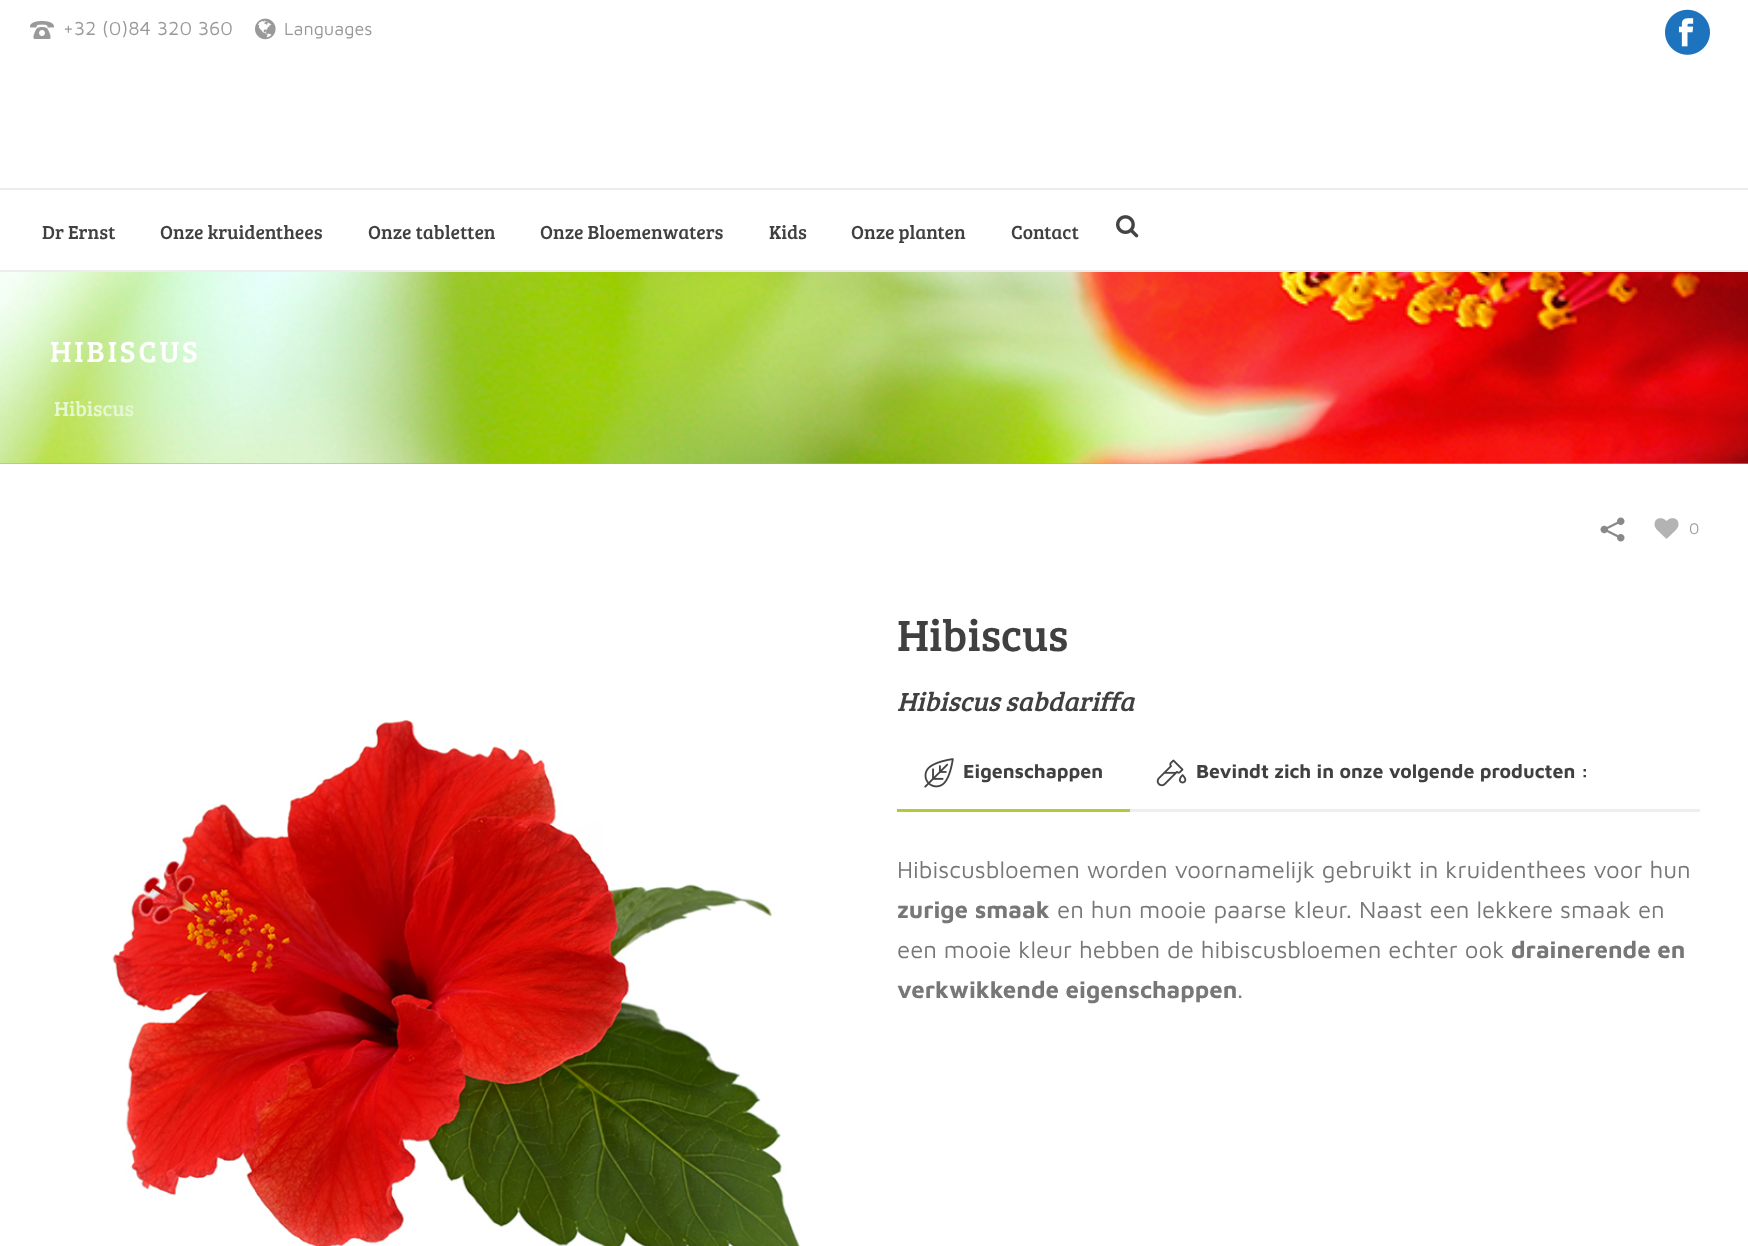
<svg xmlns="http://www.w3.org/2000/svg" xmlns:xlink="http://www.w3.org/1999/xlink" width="1748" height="1246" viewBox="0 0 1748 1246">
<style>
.cls-1{font:19.5px Maven Pro;fill:#999999}
.cls-2{font:18px Maven Pro;fill:#999999}
.cls-3{font:19.5px Bree Serif;fill:#404040}
.cls-4{font:30px Bree Serif;letter-spacing:3px;fill:#ffffff}
.cls-5{font:21px Bree Serif;fill:#e6f7d3}
.cls-6{font:16px Maven Pro;fill:#999999}
.cls-7{font:45px Bree Serif;fill:#404040}
.cls-8{font:italic 27px Bree Serif;fill:#404040}
.cls-9{font:bold 19.5px Maven Pro;fill:#404040}
.cls-10{font:24px Maven Pro;fill:#777777}
.cls-11{font:bold 24px Maven Pro;fill:#777777}
</style>
<rect width="100%" height="100%" fill="#ffffff"/>
<rect fill="#a2c62b" x="0" y="463" width="1748" height="1"/>
<image xlink:href="image0.png" x="0" y="272" width="1748" height="192"/>
<image xlink:href="image1.png" x="30" y="21" width="24" height="18"/>
<image xlink:href="image2.png" x="255" y="18" width="21" height="22"/>
<image xlink:href="image3.png" x="1665" y="9" width="45" height="46"/>
<rect fill="#ededed" x="0" y="270" width="1748" height="2"/>
<rect fill="#ededed" x="0" y="188" width="1748" height="2"/>
<image xlink:href="image4.png" x="1116" y="215" width="23" height="23"/>
<image xlink:href="image5.png" x="1600" y="517" width="25" height="25"/>
<image xlink:href="image6.png" x="1654" y="518" width="25" height="21"/>
<image xlink:href="image7.png" x="112" y="720" width="688" height="526"/>
<rect fill="#eeeeee" x="1130" y="809" width="570" height="3"/>
<rect fill="#afcb37" x="897" y="809" width="233" height="3"/>
<image xlink:href="image8.png" x="924" y="758" width="30" height="30"/>
<image xlink:href="image9.png" x="1156" y="759" width="31" height="28"/>
<text class="cls-1" x="63" y="35">+32 (0)84 320 360</text>
<text class="cls-2" x="284" y="35">Languages</text>
<text class="cls-3" x="42" y="239">Dr Ernst</text>
<text class="cls-3" x="160" y="239">Onze kruidenthees</text>
<text class="cls-3" x="368" y="239">Onze tabletten</text>
<text class="cls-3" x="540" y="239">Onze Bloemenwaters</text>
<text class="cls-3" x="769" y="239">Kids</text>
<text class="cls-3" x="851" y="239">Onze planten</text>
<text class="cls-3" x="1011" y="239">Contact</text>
<text class="cls-4" x="50" y="362">HIBISCUS</text>
<text class="cls-5" x="54" y="416">Hibiscus</text>
<text class="cls-6" x="1689" y="534">0</text>
<text class="cls-7" x="897" y="651">Hibiscus</text>
<text class="cls-8" x="897" y="711">Hibiscus sabdariffa</text>
<text class="cls-9" x="963" y="778">Eigenschappen</text>
<text class="cls-9" x="1196" y="778">Bevindt zich in onze volgende producten :</text>
<text class="cls-10" x="897" y="878">Hibiscusbloemen worden voornamelijk gebruikt in kruidenthees voor hun</text>
<text class="cls-11" x="897" y="918">zurige smaak</text>
<text class="cls-10" x="1057" y="918">en hun mooie paarse kleur. Naast een lekkere smaak en</text>
<text class="cls-10" x="897" y="958">een mooie kleur hebben de hibiscusbloemen echter ook</text>
<text class="cls-11" x="1511" y="958">drainerende en</text>
<text class="cls-11" x="897" y="998">verkwikkende eigenschappen</text>
<text class="cls-10" x="1237" y="998">.</text>
</svg>
